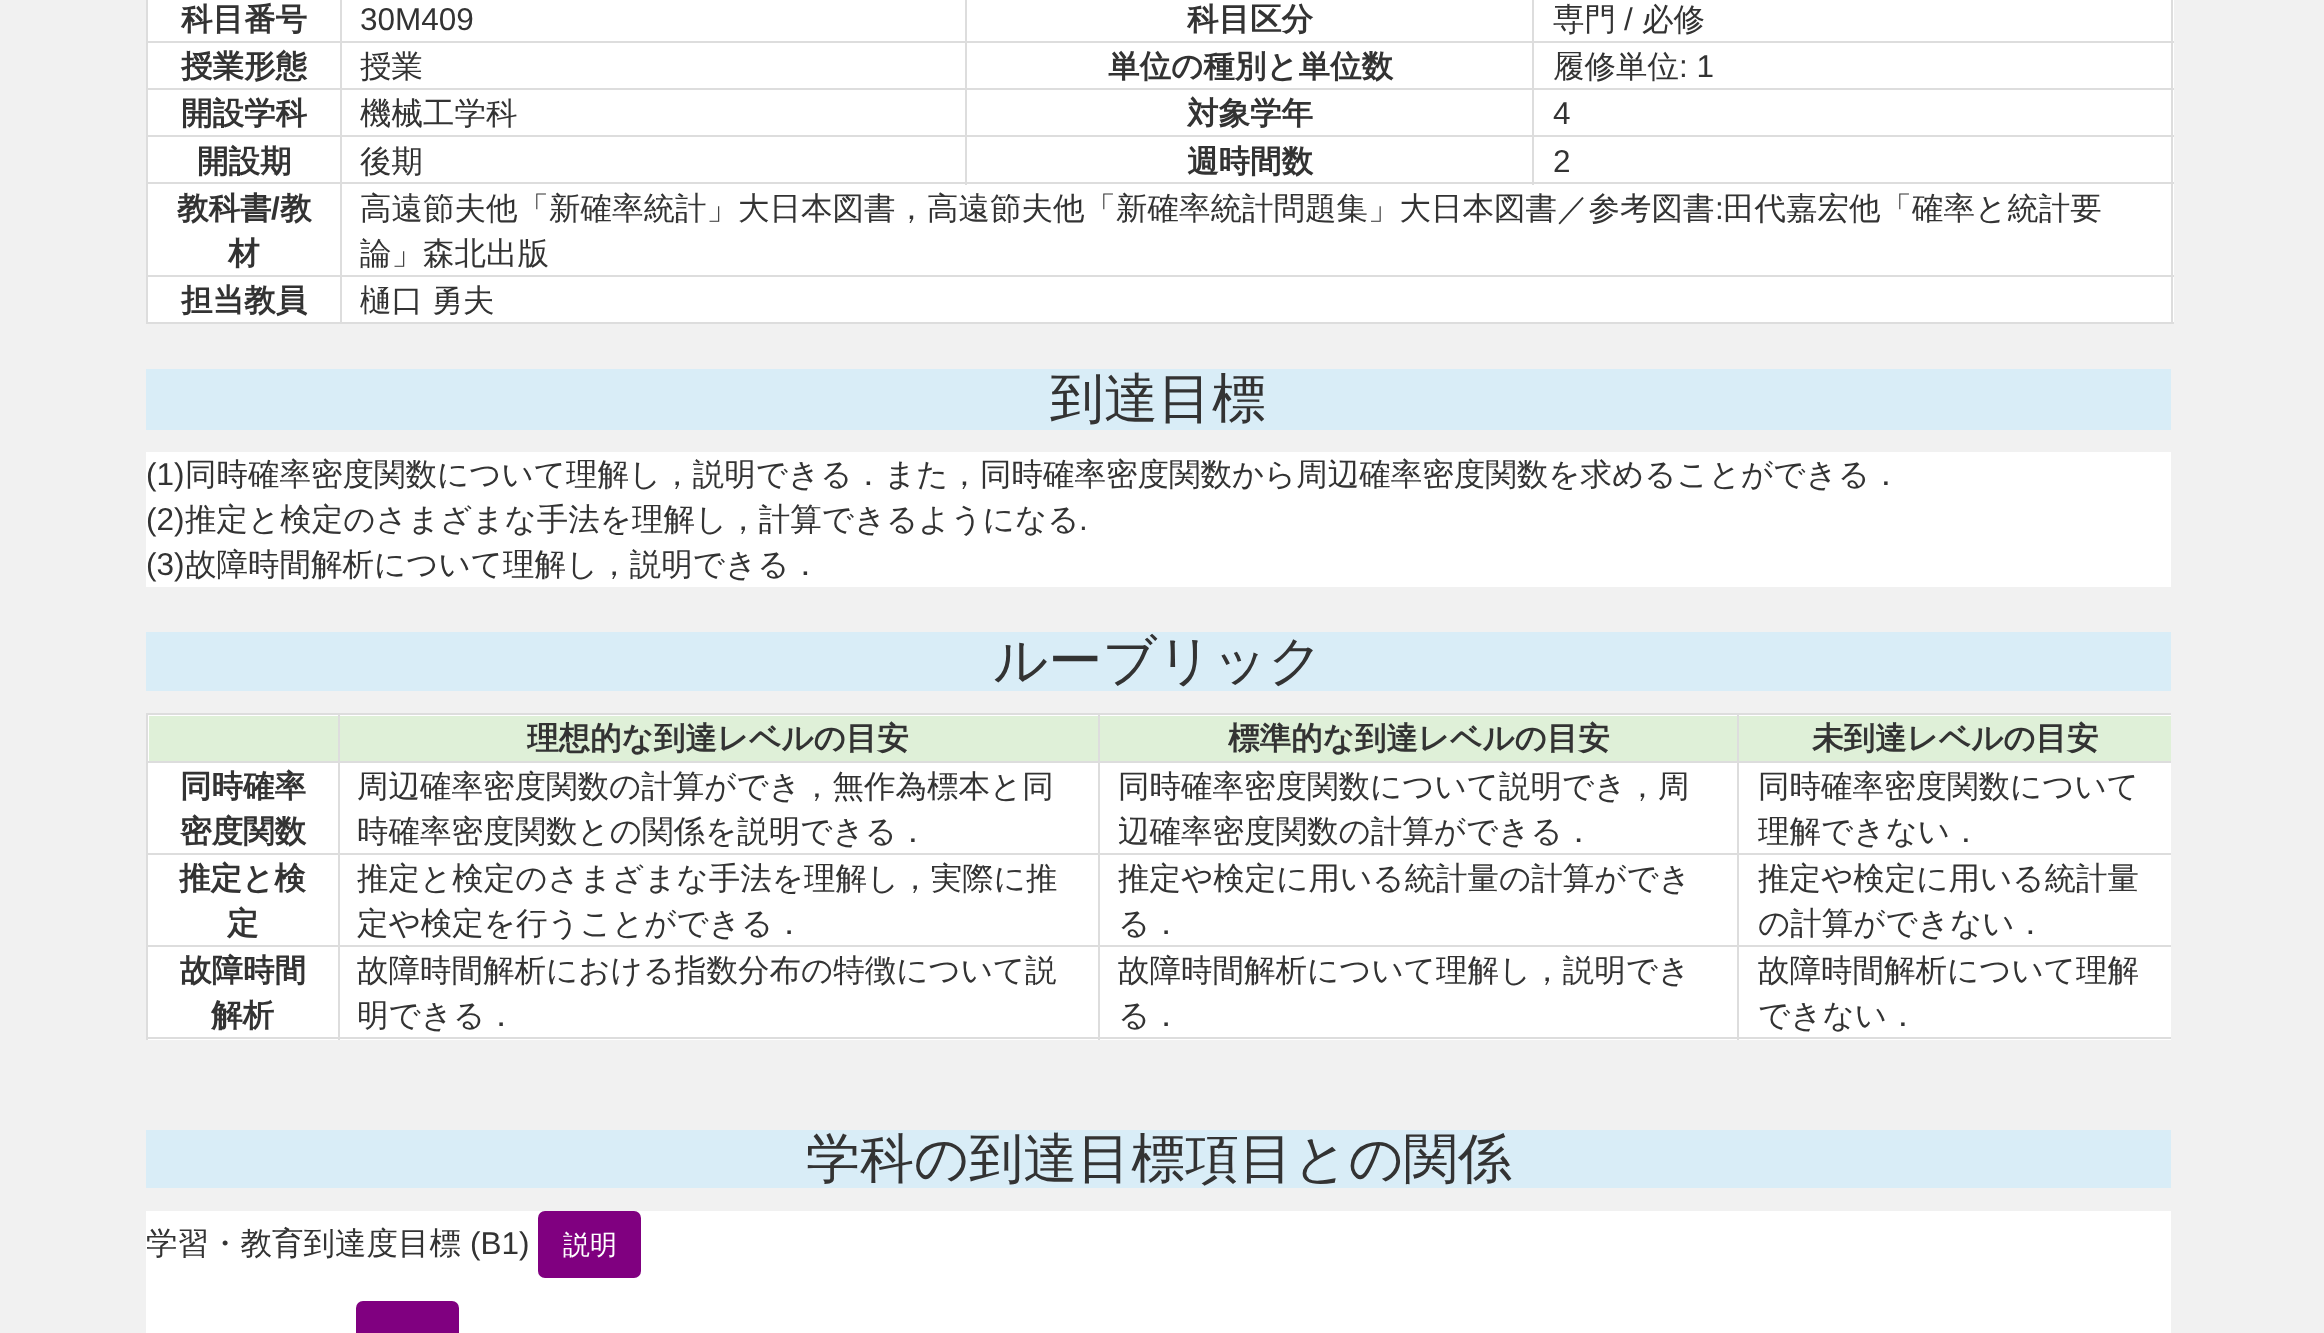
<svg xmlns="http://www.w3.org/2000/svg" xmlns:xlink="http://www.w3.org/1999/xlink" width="2324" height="1333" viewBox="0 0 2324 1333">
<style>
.cls-1{font:bold 31.5px WenQuanYi Zen Hei;fill:#333333}
.cls-2{font:31.5px Liberation Sans;fill:#333333}
.cls-3{font:500 31.5px WenQuanYi Zen Hei;fill:#333333}
.cls-4{font:bold 31.5px Liberation Sans;fill:#333333}
.cls-5{font:500 54px WenQuanYi Zen Hei;fill:#333333}
.cls-6{font:500 27px WenQuanYi Zen Hei;fill:#ffffff}
</style>
<rect width="100%" height="100%" fill="#f1f1f1"/>
<rect fill="#ffffff" x="148" y="0" width="2026" height="322"/>
<rect fill="#dddddd" x="2171" y="0" width="2" height="324"/>
<rect fill="#dddddd" x="146" y="322" width="2028" height="2"/>
<rect fill="#dddddd" x="146" y="0" width="2" height="324"/>
<rect fill="#dddddd" x="1532" y="41" width="642" height="2"/>
<rect fill="#dddddd" x="1532" y="88" width="642" height="2"/>
<rect fill="#dddddd" x="1532" y="135" width="642" height="2"/>
<rect fill="#dddddd" x="340" y="182" width="1834" height="2"/>
<rect fill="#dddddd" x="1532" y="135" width="2" height="50"/>
<rect fill="#dddddd" x="965" y="135" width="570" height="2"/>
<rect fill="#dddddd" x="1532" y="88" width="2" height="49"/>
<rect fill="#dddddd" x="965" y="88" width="570" height="2"/>
<rect fill="#dddddd" x="1532" y="41" width="2" height="49"/>
<rect fill="#dddddd" x="965" y="41" width="570" height="2"/>
<rect fill="#dddddd" x="965" y="135" width="2" height="50"/>
<rect fill="#dddddd" x="340" y="135" width="628" height="2"/>
<rect fill="#dddddd" x="965" y="88" width="2" height="49"/>
<rect fill="#dddddd" x="340" y="88" width="628" height="2"/>
<rect fill="#dddddd" x="965" y="41" width="2" height="49"/>
<rect fill="#dddddd" x="340" y="41" width="628" height="2"/>
<rect fill="#dddddd" x="340" y="275" width="1834" height="2"/>
<rect fill="#dddddd" x="340" y="275" width="2" height="49"/>
<rect fill="#dddddd" x="146" y="275" width="196" height="2"/>
<rect fill="#dddddd" x="340" y="182" width="2" height="95"/>
<rect fill="#dddddd" x="146" y="182" width="196" height="2"/>
<rect fill="#dddddd" x="340" y="135" width="2" height="50"/>
<rect fill="#dddddd" x="146" y="135" width="196" height="2"/>
<rect fill="#dddddd" x="340" y="88" width="2" height="49"/>
<rect fill="#dddddd" x="146" y="88" width="196" height="2"/>
<rect fill="#dddddd" x="340" y="41" width="2" height="49"/>
<rect fill="#dddddd" x="146" y="41" width="196" height="2"/>
<rect fill="#dddddd" x="340" y="0" width="2" height="43"/>
<rect fill="#dddddd" x="965" y="0" width="2" height="43"/>
<rect fill="#dddddd" x="1532" y="0" width="2" height="43"/>
<rect fill="#d9edf7" x="146" y="369" width="2025" height="61"/>
<rect fill="#ffffff" x="146" y="452" width="2025" height="135"/>
<rect fill="#d9edf7" x="146" y="632" width="2025" height="59"/>
<rect fill="#ffffff" x="148" y="715" width="2023" height="325"/>
<rect fill="#dddddd" x="146" y="713" width="2025" height="2"/>
<rect fill="#dddddd" x="146" y="1037" width="2025" height="2"/>
<rect fill="#dddddd" x="146" y="713" width="2" height="327"/>
<rect fill="#dff0d8" x="149" y="716" width="2022" height="45"/>
<rect fill="#dddddd" x="1737" y="761" width="434" height="2"/>
<rect fill="#dddddd" x="1737" y="853" width="434" height="2"/>
<rect fill="#dddddd" x="1737" y="945" width="434" height="2"/>
<rect fill="#dddddd" x="1737" y="945" width="2" height="95"/>
<rect fill="#dddddd" x="1098" y="945" width="641" height="2"/>
<rect fill="#dddddd" x="1737" y="853" width="2" height="94"/>
<rect fill="#dddddd" x="1098" y="853" width="641" height="2"/>
<rect fill="#dddddd" x="1737" y="761" width="2" height="94"/>
<rect fill="#dddddd" x="1098" y="761" width="641" height="2"/>
<rect fill="#dddddd" x="1098" y="945" width="2" height="95"/>
<rect fill="#dddddd" x="338" y="945" width="762" height="2"/>
<rect fill="#dddddd" x="1098" y="853" width="2" height="94"/>
<rect fill="#dddddd" x="338" y="853" width="762" height="2"/>
<rect fill="#dddddd" x="1098" y="761" width="2" height="94"/>
<rect fill="#dddddd" x="338" y="761" width="762" height="2"/>
<rect fill="#dddddd" x="338" y="945" width="2" height="95"/>
<rect fill="#dddddd" x="146" y="945" width="194" height="2"/>
<rect fill="#dddddd" x="338" y="853" width="2" height="94"/>
<rect fill="#dddddd" x="146" y="853" width="194" height="2"/>
<rect fill="#dddddd" x="338" y="761" width="2" height="94"/>
<rect fill="#dddddd" x="146" y="761" width="194" height="2"/>
<rect fill="#dddddd" x="338" y="713" width="2" height="50"/>
<rect fill="#dddddd" x="1098" y="713" width="2" height="50"/>
<rect fill="#dddddd" x="1737" y="713" width="2" height="50"/>
<rect fill="#d9edf7" x="146" y="1130" width="2025" height="58"/>
<rect fill="#ffffff" x="146" y="1211" width="2025" height="122"/>
<rect fill="#800080" x="538" y="1211" width="103" height="67" rx="7"/>
<rect fill="#800080" x="356" y="1301" width="103" height="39" rx="7"/>
<text class="cls-1" x="181" y="30">科目番号</text>
<text class="cls-2" x="360" y="30">30M409</text>
<text class="cls-1" x="1187" y="30">科目区分</text>
<text class="cls-3" x="1553" y="30">専門</text>
<text class="cls-2" x="1624" y="30">/</text>
<text class="cls-3" x="1642" y="30">必修</text>
<text class="cls-1" x="181" y="77">授業形態</text>
<text class="cls-3" x="360" y="77">授業</text>
<text class="cls-1" x="1108" y="77">単位の種別と単位数</text>
<text class="cls-3" x="1553" y="77">履修単位</text>
<text class="cls-2" x="1679" y="77">: 1</text>
<text class="cls-1" x="181" y="124">開設学科</text>
<text class="cls-3" x="360" y="124">機械工学科</text>
<text class="cls-1" x="1187" y="124">対象学年</text>
<text class="cls-2" x="1553" y="124">4</text>
<text class="cls-1" x="197" y="172">開設期</text>
<text class="cls-3" x="360" y="172">後期</text>
<text class="cls-1" x="1187" y="172">週時間数</text>
<text class="cls-2" x="1553" y="172">2</text>
<text class="cls-1" x="177" y="219">教科書</text>
<text class="cls-4" x="271" y="219">/</text>
<text class="cls-1" x="280" y="219">教</text>
<text class="cls-1" x="228" y="264">材</text>
<text class="cls-3" x="360" y="219">高遠節夫他「新確率統計」大日本図書，高遠節夫他「新確率統計問題集」大日本図書／参考図書</text>
<text class="cls-2" x="1715" y="219">:</text>
<text class="cls-3" x="1723" y="219">田代嘉宏他「確率と統計要</text>
<text class="cls-3" x="360" y="264">論」森北出版</text>
<text class="cls-1" x="181" y="311">担当教員</text>
<text class="cls-3" x="360" y="311" word-spacing="-1">樋口 勇夫</text>
<text class="cls-5" x="1050" y="417">到達目標</text>
<text class="cls-2" x="146" y="485">(1)</text>
<text class="cls-3" x="185" y="485">同時確率密度関数について理解し，説明できる．また，同時確率密度関数から周辺確率密度関数を求めることができる．</text>
<text class="cls-2" x="146" y="530">(2)</text>
<text class="cls-3" x="185" y="530">推定と検定のさまざまな手法を理解し，計算できるようになる</text>
<text class="cls-2" x="1079" y="530">.</text>
<text class="cls-2" x="146" y="575">(3)</text>
<text class="cls-3" x="185" y="575">故障時間解析について理解し，説明できる．</text>
<text class="cls-5" x="993" y="679">ルーブリック</text>
<text class="cls-1" x="527" y="749">理想的な到達レベルの目安</text>
<text class="cls-1" x="1228" y="749">標準的な到達レベルの目安</text>
<text class="cls-1" x="1812" y="749">未到達レベルの目安</text>
<text class="cls-1"><tspan x="180" y="797">同時確率</tspan><tspan x="180" y="842">密度関数</tspan></text>
<text class="cls-3"><tspan x="357" y="797">周辺確率密度関数の計算ができ，無作為標本と同</tspan><tspan x="357" y="842">時確率密度関数との関係を説明できる．</tspan></text>
<text class="cls-3"><tspan x="1118" y="797">同時確率密度関数について説明でき，周</tspan><tspan x="1118" y="842">辺確率密度関数の計算ができる．</tspan></text>
<text class="cls-3"><tspan x="1758" y="797">同時確率密度関数について</tspan><tspan x="1758" y="842">理解できない．</tspan></text>
<text class="cls-1" x="179" y="889">推定と検</text>
<text class="cls-1" x="227" y="934">定</text>
<text class="cls-3"><tspan x="357" y="889">推定と検定のさまざまな手法を理解し，実際に推</tspan><tspan x="357" y="934">定や検定を行うことができる．</tspan></text>
<text class="cls-3"><tspan x="1118" y="889">推定や検定に用いる統計量の計算ができ</tspan><tspan x="1118" y="934">る．</tspan></text>
<text class="cls-3"><tspan x="1758" y="889">推定や検定に用いる統計量</tspan><tspan x="1758" y="934">の計算ができない．</tspan></text>
<text class="cls-1" x="180" y="981">故障時間</text>
<text class="cls-1" x="211" y="1026">解析</text>
<text class="cls-3"><tspan x="357" y="981">故障時間解析における指数分布の特徴について説</tspan><tspan x="357" y="1026">明できる．</tspan></text>
<text class="cls-3"><tspan x="1118" y="981">故障時間解析について理解し，説明でき</tspan><tspan x="1118" y="1026">る．</tspan></text>
<text class="cls-3"><tspan x="1758" y="981">故障時間解析について理解</tspan><tspan x="1758" y="1026">できない．</tspan></text>
<text class="cls-5" x="806" y="1177">学科の到達目標項目との関係</text>
<text class="cls-3" x="146" y="1254">学習・教育到達度目標</text>
<text class="cls-2" x="470" y="1254">(B1)</text>
<text class="cls-6" x="563" y="1254">説明</text>
</svg>
